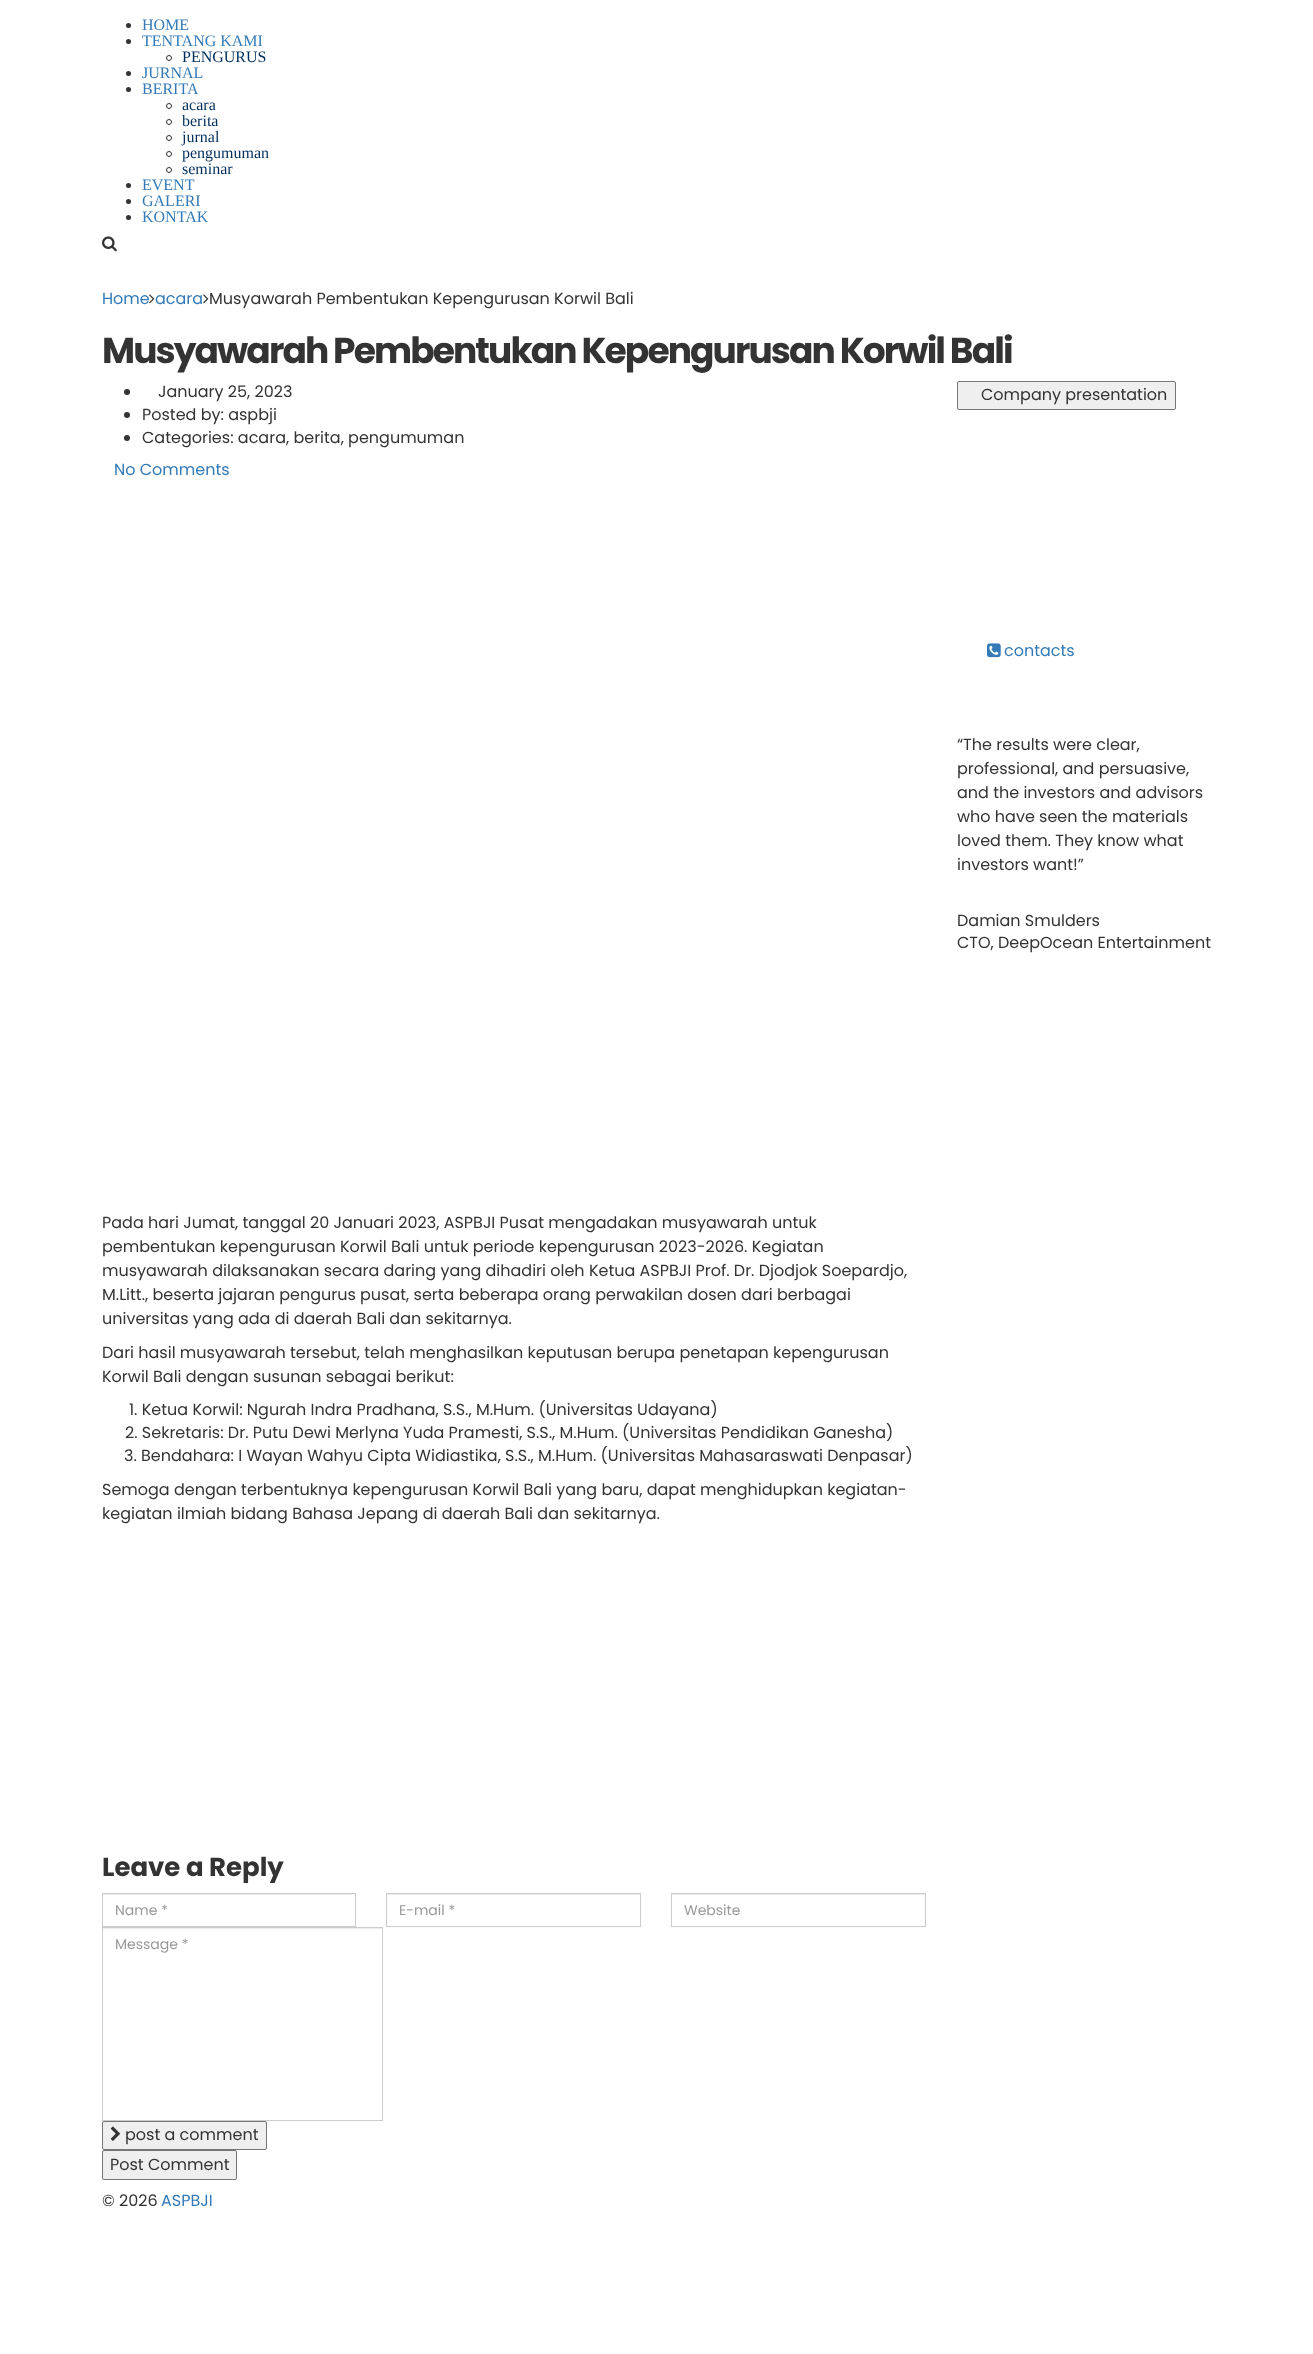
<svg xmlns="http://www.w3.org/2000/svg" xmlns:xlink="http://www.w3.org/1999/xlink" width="1313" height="2354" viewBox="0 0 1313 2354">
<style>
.cls-1{font:16px Liberation Serif;fill:#337ab7}
.cls-2{font:16px Liberation Serif;fill:#002e5b}
.cls-3{font:16px Poppins;fill:#337ab7}
.cls-4{font:16px Poppins;fill:#333333}
.cls-5{font:bold 36px Poppins;letter-spacing:-1.9px;fill:#333333}
.cls-6{font:bold 26px Poppins;fill:#333333}
.cls-7{font:14px Poppins;fill:#999999}
</style>
<rect width="100%" height="100%" fill="#ffffff"/>
<circle fill="#333333" cx="128.5" cy="25.5" r="2.5"/>
<circle fill="#333333" cx="128.5" cy="41.5" r="2.5"/>
<circle fill="none" stroke="#333333" cx="169" cy="58" r="2.5"/>
<circle fill="#333333" cx="128.5" cy="73.5" r="2.5"/>
<circle fill="#333333" cx="128.5" cy="89.5" r="2.5"/>
<circle fill="none" stroke="#333333" cx="169" cy="106" r="2.5"/>
<circle fill="none" stroke="#333333" cx="169" cy="122" r="2.5"/>
<circle fill="none" stroke="#333333" cx="169" cy="138" r="2.5"/>
<circle fill="none" stroke="#333333" cx="169" cy="154" r="2.5"/>
<circle fill="none" stroke="#333333" cx="169" cy="170" r="2.5"/>
<circle fill="#333333" cx="128.5" cy="185.5" r="2.5"/>
<circle fill="#333333" cx="128.5" cy="201.5" r="2.5"/>
<circle fill="#333333" cx="128.5" cy="217.5" r="2.5"/>
<image xlink:href="image0.png" x="102" y="236" width="15" height="16"/>
<image xlink:href="image1.png" x="149" y="294" width="6" height="10"/>
<image xlink:href="image1.png" x="203" y="294" width="6" height="10"/>
<circle fill="#333333" cx="127" cy="392" r="3"/>
<circle fill="#333333" cx="127" cy="415" r="3"/>
<circle fill="#333333" cx="127" cy="438" r="3"/>
<rect fill="#ececec" x="103" y="1894" width="252" height="1"/>
<rect fill="none" stroke="#cccccc" x="102.5" y="1893.5" width="253" height="33"/>
<rect fill="#ececec" x="387" y="1894" width="253" height="1"/>
<rect fill="none" stroke="#cccccc" x="386.5" y="1893.5" width="254" height="33"/>
<rect fill="#ececec" x="672" y="1894" width="253" height="1"/>
<rect fill="none" stroke="#cccccc" x="671.5" y="1893.5" width="254" height="33"/>
<rect fill="#ececec" x="103" y="1928" width="279" height="1"/>
<rect fill="none" stroke="#cccccc" x="102.5" y="1927.5" width="280" height="193"/>
<rect fill="#efefef" stroke="#767676" x="102.5" y="2121.5" width="164" height="28" rx="1.5"/>
<image xlink:href="image2.png" x="110" y="2126" width="10" height="15"/>
<rect fill="#efefef" stroke="#767676" x="102.5" y="2150.5" width="134" height="29" rx="1.5"/>
<rect fill="#efefef" stroke="#767676" x="957.5" y="381.5" width="218" height="28" rx="1.5"/>
<image xlink:href="image3.png" x="987" y="643" width="14" height="15"/>
<text class="cls-1"><tspan x="142" y="30">HOME</tspan><tspan x="142" y="46">TENTANG KAMI</tspan></text>
<text class="cls-2" x="182" y="62">PENGURUS</text>
<text class="cls-1"><tspan x="142" y="78">JURNAL</tspan><tspan x="142" y="94">BERITA</tspan></text>
<text class="cls-2"><tspan x="182" y="110">acara</tspan><tspan x="182" y="126">berita</tspan><tspan x="182" y="142">jurnal</tspan><tspan x="182" y="158">pengumuman</tspan><tspan x="182" y="174">seminar</tspan></text>
<text class="cls-1"><tspan x="142" y="190">EVENT</tspan><tspan x="142" y="206">GALERI</tspan><tspan x="142" y="222">KONTAK</tspan></text>
<text class="cls-3" x="102" y="304">Home</text>
<text class="cls-3" x="155" y="304">acara</text>
<text class="cls-4" x="209" y="304">Musyawarah Pembentukan Kepengurusan Korwil Bali</text>
<text class="cls-5" x="102" y="363">Musyawarah Pembentukan Kepengurusan Korwil Bali</text>
<text class="cls-4" x="158" y="397">January 25, 2023</text>
<text class="cls-4"><tspan x="142" y="420">Posted by: aspbji</tspan><tspan x="142" y="443">Categories: acara, berita, pengumuman</tspan></text>
<text class="cls-3" x="114" y="475">No Comments</text>
<text class="cls-4"><tspan x="102" y="1228">Pada hari Jumat, tanggal 20 Januari 2023, ASPBJI Pusat mengadakan musyawarah untuk</tspan><tspan x="102" y="1252">pembentukan kepengurusan Korwil Bali untuk periode kepengurusan 2023-2026. Kegiatan</tspan><tspan x="102" y="1276">musyawarah dilaksanakan secara daring yang dihadiri oleh Ketua ASPBJI Prof. Dr. Djodjok Soepardjo,</tspan><tspan x="102" y="1300">M.Litt., beserta jajaran pengurus pusat, serta beberapa orang perwakilan dosen dari berbagai</tspan><tspan x="102" y="1324">universitas yang ada di daerah Bali dan sekitarnya.</tspan></text>
<text class="cls-4"><tspan x="102" y="1358">Dari hasil musyawarah tersebut, telah menghasilkan keputusan berupa penetapan kepengurusan</tspan><tspan x="102" y="1382">Korwil Bali dengan susunan sebagai berikut:</tspan></text>
<text class="cls-4" x="129" y="1415">1. Ketua Korwil: Ngurah Indra Pradhana, S.S., M.Hum. (Universitas Udayana)</text>
<text class="cls-4" x="125" y="1438">2. Sekretaris: Dr. Putu Dewi Merlyna Yuda Pramesti, S.S., M.Hum. (Universitas Pendidikan Ganesha)</text>
<text class="cls-4" x="124" y="1461">3. Bendahara: I Wayan Wahyu Cipta Widiastika, S.S., M.Hum. (Universitas Mahasaraswati Denpasar)</text>
<text class="cls-4"><tspan x="102" y="1495">Semoga dengan terbentuknya kepengurusan Korwil Bali yang baru, dapat menghidupkan kegiatan-</tspan><tspan x="102" y="1519">kegiatan ilmiah bidang Bahasa Jepang di daerah Bali dan sekitarnya.</tspan></text>
<text class="cls-6" x="102" y="1876">Leave a Reply</text>
<text class="cls-7" x="115" y="1915">Name *</text>
<text class="cls-7" x="399" y="1915">E-mail *</text>
<text class="cls-7" x="684" y="1915">Website</text>
<text class="cls-7" x="115" y="1949">Message *</text>
<text class="cls-4" x="125" y="2140">post a comment</text>
<text class="cls-4" x="110" y="2170">Post Comment</text>
<text class="cls-4" x="981" y="400">Company presentation</text>
<text class="cls-3" x="1004" y="656">contacts</text>
<text class="cls-4"><tspan x="957" y="750">“The results were clear,</tspan><tspan x="957" y="774">professional, and persuasive,</tspan><tspan x="957" y="798">and the investors and advisors</tspan><tspan x="957" y="822">who have seen the materials</tspan><tspan x="957" y="846">loved them. They know what</tspan><tspan x="957" y="870">investors want!”</tspan></text>
<text class="cls-4"><tspan x="957" y="926">Damian Smulders</tspan><tspan x="957" y="948">CTO, DeepOcean Entertainment</tspan></text>
<text class="cls-4" x="102" y="2206">© 2026</text>
<text class="cls-3" x="161" y="2206">ASPBJI</text>
</svg>
